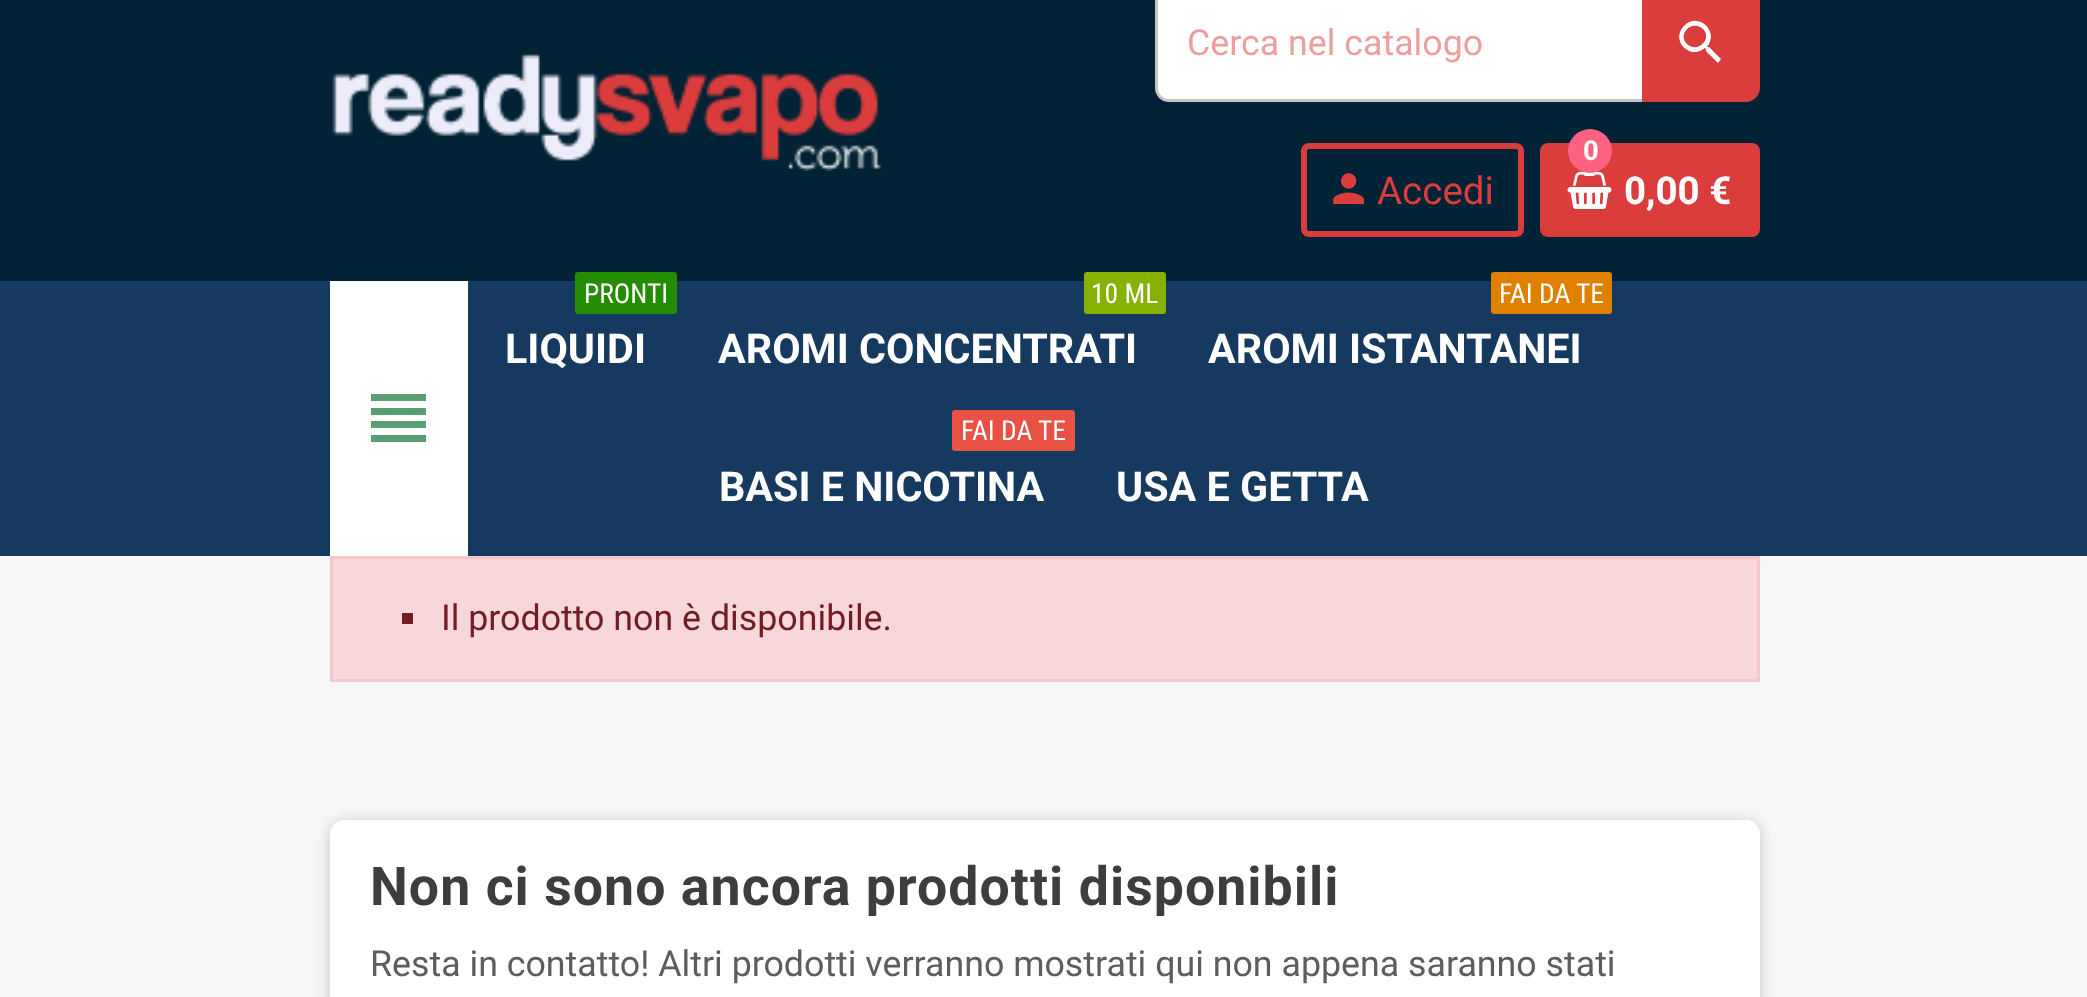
<svg xmlns="http://www.w3.org/2000/svg" xmlns:xlink="http://www.w3.org/1999/xlink" width="2087" height="997" viewBox="0 0 2087 997">
<style>
.cls-1{font:35.75px Roboto;fill:#ed9e9e}
.cls-2{font:38.5px Roboto;fill:#db3d3d}
.cls-3{font:bold 27.5px Roboto;fill:#ffffff}
.cls-4{font:bold 38.5px Roboto;fill:#ffffff}
.cls-5{font:27.5px Roboto Condensed;fill:#ffffff}
.cls-6{font:bold 41.25px 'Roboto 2';fill:#ffffff}
.cls-7{font:35.75px Roboto;fill:#721c24}
.cls-8{font:bold 53.6px 'Roboto 2';letter-spacing:1.05px;fill:#3d3d3d}
.cls-9{font:35.75px Roboto;fill:#5d5d5d}
</style>
<rect width="100%" height="100%" fill="#022335"/>
<image xlink:href="image0.png" x="332" y="54" width="549" height="117"/>
<rect fill="#ffffff" stroke="#c7c7c7" stroke-width="3" x="1156.5" y="-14.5" width="599" height="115" rx="12.5"/>
<path fill="#db3d3d" d="M1642-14H1746C1753.5-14 1760-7.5 1760 0V88C1760 95.5 1753.5 102 1746 102H1642Z"/>
<path fill="#ffffff" d="M1687 44C1697 54 1713 39 1703 29C1692 19 1677 34 1687 44ZM1709 47L1721 59L1718 63L1706 51V49L1705 48C1690 61 1670 40 1684 26C1698 11 1720 32 1707 47Z"/>
<rect fill="none" stroke="#db3d3d" stroke-width="6" x="1304" y="146" width="217" height="88" rx="5"/>
<image xlink:href="image1.png" x="1333" y="173" width="32" height="32"/>
<rect fill="#db3d3d" x="1540" y="143" width="220" height="94" rx="8"/>
<image xlink:href="image2.png" x="1567" y="171" width="45" height="38"/>
<circle fill="#fd6282" cx="1590" cy="151" r="22"/>
<rect fill="#163a5f" x="0" y="281" width="2087" height="275"/>
<rect fill="#ffffff" x="330" y="281" width="138" height="275"/>
<path fill="#5a9e74" d="M371 394H426V401H371ZM371 415V408H426V415ZM371 442V435H426V442ZM371 428V421H426V428Z"/>
<rect fill="#238c00" x="575" y="272" width="102" height="42" rx="3"/>
<rect fill="#85b200" x="1084" y="272" width="82" height="42" rx="3"/>
<rect fill="#df8000" x="1491" y="272" width="121" height="42" rx="3"/>
<rect fill="#e95144" x="952" y="410" width="123" height="41" rx="3"/>
<rect fill="#f7f7f7" x="0" y="556" width="2087" height="441"/>
<rect fill="#f8d7da" stroke="#f5c6cb" stroke-width="3" x="331.5" y="557.5" width="1427" height="123"/>
<rect fill="#721c24" x="402" y="613" width="11" height="11"/>
<rect fill="#000000" fill-opacity="0.2" filter="blur(7px)" x="330" y="822" width="1430" height="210" rx="14"/>
<rect fill="#ffffff" x="330" y="820" width="1430" height="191" rx="14"/>
<text class="cls-1" x="1187" y="55">Cerca nel catalogo</text>
<text class="cls-2" x="1377" y="204">Accedi</text>
<text class="cls-3" x="1583" y="160">0</text>
<text class="cls-4" x="1624" y="204">0,00 €</text>
<text class="cls-5" x="584" y="303">PRONTI</text>
<text class="cls-6" x="505" y="363">LIQUIDI</text>
<text class="cls-5" x="1091" y="303">10 ML</text>
<text class="cls-6" x="718" y="363">AROMI CONCENTRATI</text>
<text class="cls-5" x="1499" y="303">FAI DA TE</text>
<text class="cls-6" x="1208" y="363">AROMI ISTANTANEI</text>
<text class="cls-5" x="961" y="440">FAI DA TE</text>
<text class="cls-6" x="719" y="501">BASI E NICOTINA</text>
<text class="cls-6" x="1116" y="501">USA E GETTA</text>
<text class="cls-7" x="441" y="630">Il prodotto non è disponibile.</text>
<text class="cls-8" x="370" y="905">Non ci sono ancora prodotti disponibili</text>
<text class="cls-9" x="370" y="976">Resta in contatto! Altri prodotti verranno mostrati qui non appena saranno stati</text>
</svg>
